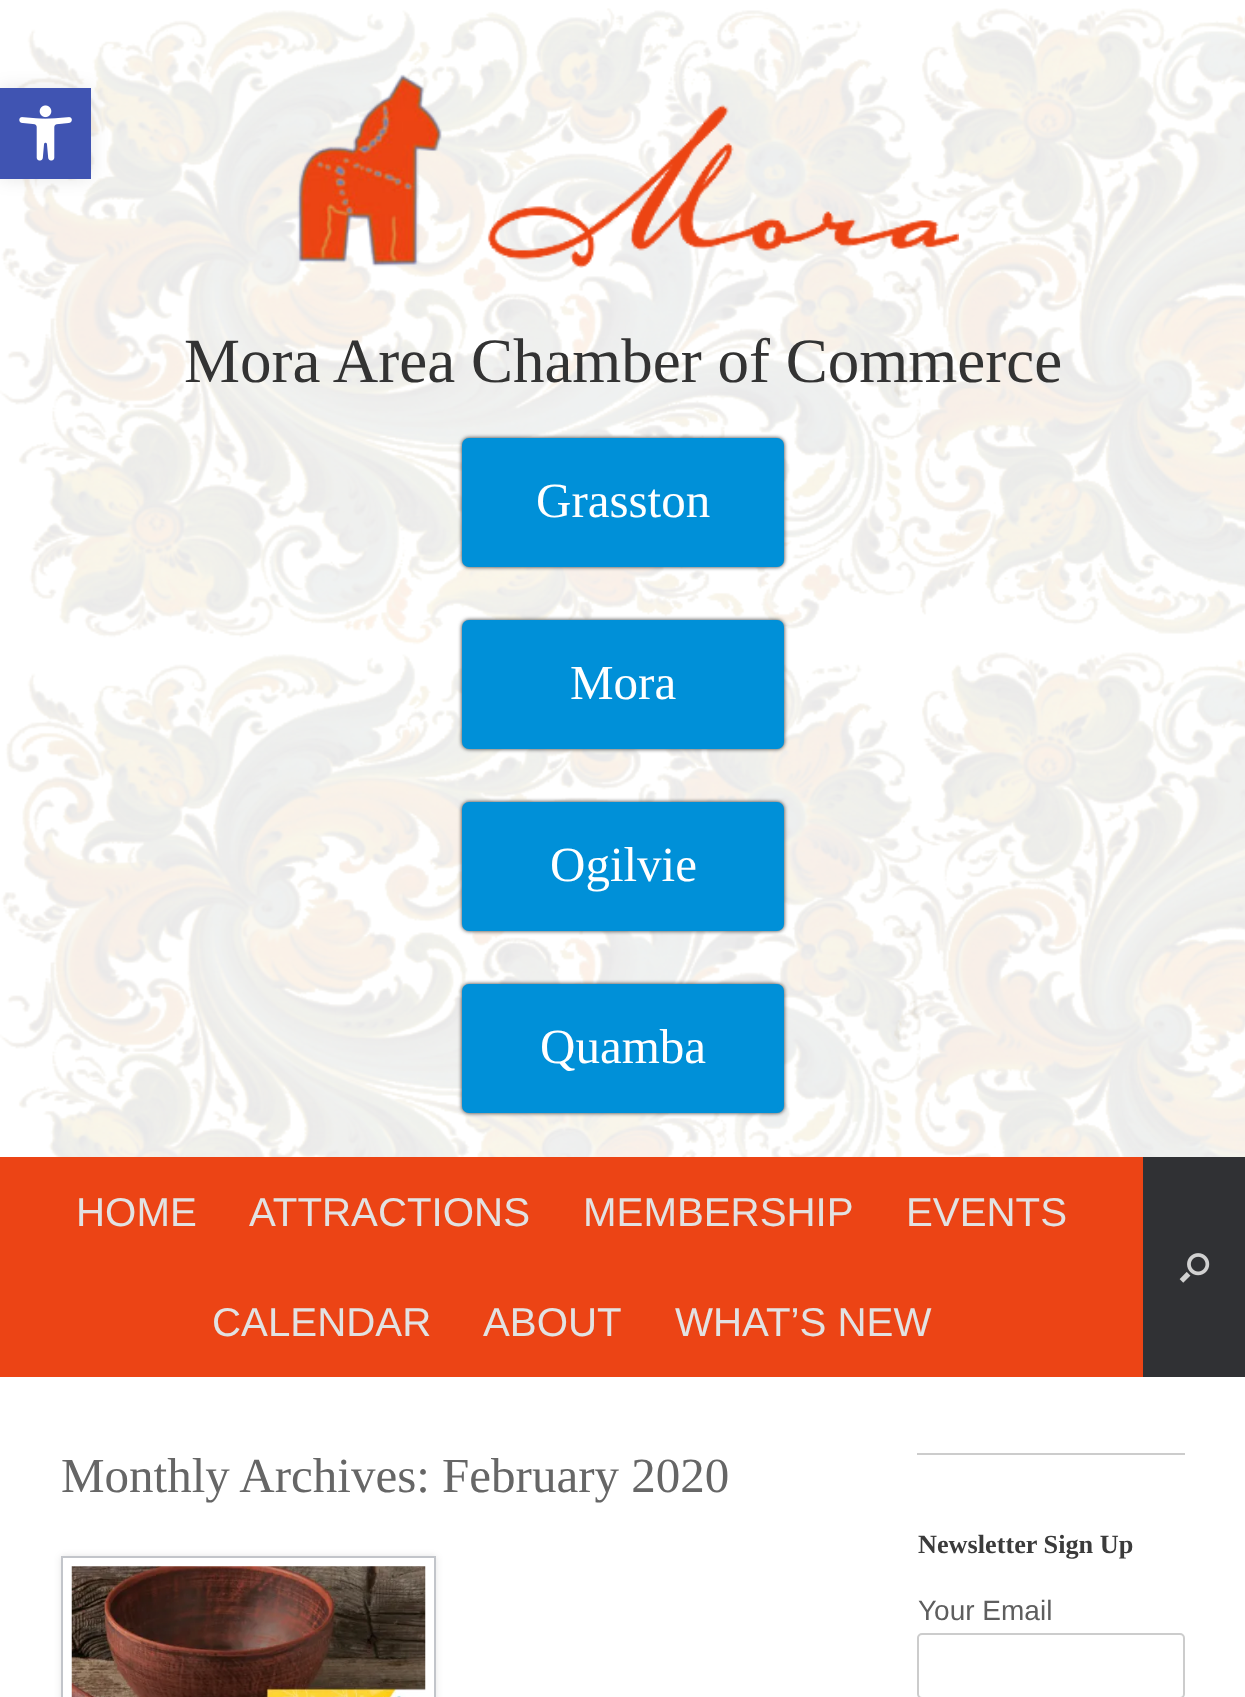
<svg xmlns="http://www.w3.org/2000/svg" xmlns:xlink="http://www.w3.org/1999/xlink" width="1245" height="1697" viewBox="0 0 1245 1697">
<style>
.cls-1{font:63px Liberation Serif;fill:#333333}
.cls-2{font:49px Liberation Serif;fill:#ffffff}
.cls-3{font:40.25px Liberation Sans;fill:#e2e2e2}
.cls-4{font:49px Liberation Serif;fill:#666666}
.cls-5{font:bold 26.25px Liberation Serif;fill:#3b3b3b}
.cls-6{font:28px Liberation Sans;fill:#5e5e5e}
</style>
<rect width="100%" height="100%" fill="#ffffff"/>
<image xlink:href="image1.png" x="0" y="8" width="1245" height="1149"/>
<rect fill="#000000" fill-opacity="0.1" filter="blur(9px)" x="0" y="88" width="91" height="91"/>
<rect fill="#4054b2" x="0" y="88" width="91" height="91"/>
<image xlink:href="image0.png" x="19" y="105" width="53" height="56"/>
<image xlink:href="image2.png" x="297" y="74" width="662" height="194"/>
<rect fill="#333333" filter="blur(2px)" x="462" y="438" width="322" height="129" rx="7"/>
<rect fill="#0090d8" stroke="#0090d8" stroke-width="4" x="464" y="440" width="318" height="125" rx="5"/>
<rect fill="#333333" filter="blur(2px)" x="462" y="620" width="322" height="129" rx="7"/>
<rect fill="#0090d8" stroke="#0090d8" stroke-width="4" x="464" y="622" width="318" height="125" rx="5"/>
<rect fill="#333333" filter="blur(2px)" x="462" y="802" width="322" height="129" rx="7"/>
<rect fill="#0090d8" stroke="#0090d8" stroke-width="4" x="464" y="804" width="318" height="125" rx="5"/>
<rect fill="#333333" filter="blur(2px)" x="462" y="984" width="322" height="129" rx="7"/>
<rect fill="#0090d8" stroke="#0090d8" stroke-width="4" x="464" y="986" width="318" height="125" rx="5"/>
<rect fill="#ec4415" x="0" y="1157" width="1143" height="220"/>
<rect fill="#303134" x="1143" y="1157" width="102" height="220"/>
<image xlink:href="image3.png" x="1179" y="1253" width="31" height="30"/>
<rect fill="#000000" fill-opacity="0.1" filter="blur(3.5px)" x="61" y="1556" width="375" height="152"/>
<rect fill="#ffffff" stroke="#c2c5ca" stroke-width="2" x="62" y="1557" width="373" height="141"/>
<image xlink:href="image4.png" x="71" y="1566" width="355" height="131"/>
<rect fill="#cccccc" x="917" y="1453" width="268" height="2"/>
<rect fill="none" stroke="#cccccc" stroke-width="2" x="918" y="1634" width="266" height="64" rx="4"/>
<text class="cls-1" x="184" y="382">Mora Area Chamber of Commerce</text>
<text class="cls-2" x="536" y="517">Grasston</text>
<text class="cls-2" x="570" y="699">Mora</text>
<text class="cls-2" x="550" y="881">Ogilvie</text>
<text class="cls-2" x="540" y="1063">Quamba</text>
<text class="cls-3" x="76" y="1226">HOME</text>
<text class="cls-3" x="249" y="1226">ATTRACTIONS</text>
<text class="cls-3" x="583" y="1226">MEMBERSHIP</text>
<text class="cls-3" x="906" y="1226">EVENTS</text>
<text class="cls-3" x="212" y="1336">CALENDAR</text>
<text class="cls-3" x="483" y="1336">ABOUT</text>
<text class="cls-3" x="675" y="1336">WHAT’S NEW</text>
<text class="cls-4" x="61" y="1492">Monthly Archives: February 2020</text>
<text class="cls-5" x="918" y="1553">Newsletter Sign Up</text>
<text class="cls-6" x="918" y="1620">Your Email</text>
</svg>
